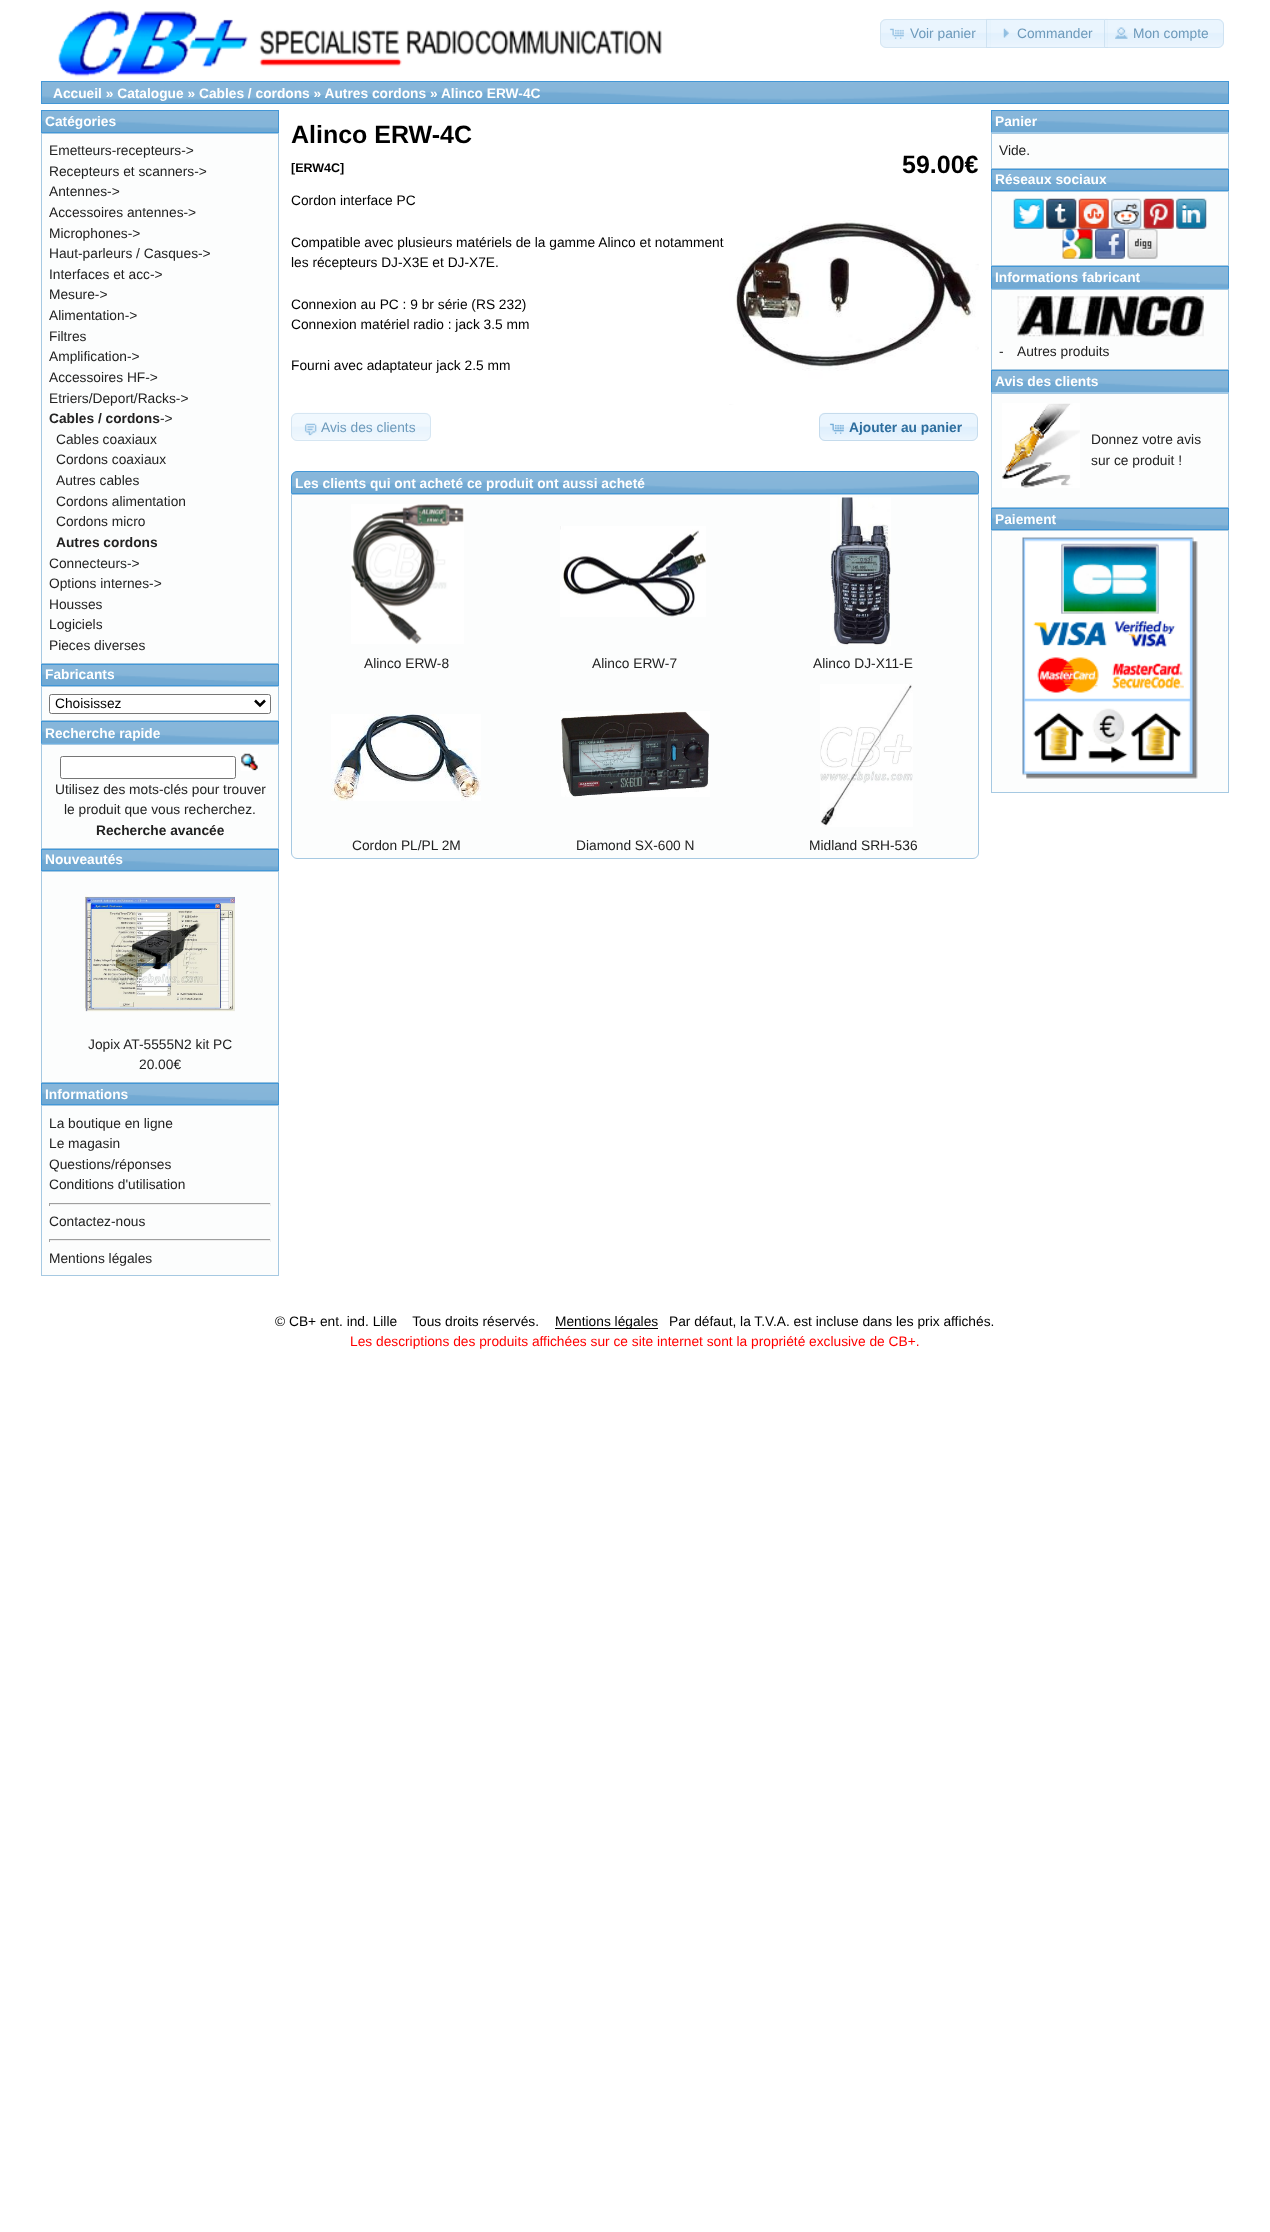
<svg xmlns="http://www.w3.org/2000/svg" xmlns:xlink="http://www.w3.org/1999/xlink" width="1270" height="2232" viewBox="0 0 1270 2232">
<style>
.cls-1{font:13.75px Liberation Sans;fill:#6d9abb}
.cls-2{font:bold 13.75px Liberation Sans;fill:#ffffff}
.cls-3{font:13.75px Liberation Sans;fill:#222222}
.cls-4{font:bold 13.75px Liberation Sans;fill:#222222}
.cls-5{font:13.75px Liberation Sans;fill:#000000}
.cls-6{font:bold 25px Liberation Sans;fill:#000000}
.cls-7{font:bold 12.5px Liberation Sans;fill:#000000}
.cls-8{font:bold 13.75px Liberation Sans;fill:#2e6e9e}
.cls-9{font:13.75px Liberation Sans;fill:#ff0000}
</style>
<rect width="100%" height="100%" fill="#ffffff"/>
<image xlink:href="image0.png" x="58" y="10" width="604" height="67"/>
<path fill="#e9f4fd" d="M886 19H991V48H886C882.5 48 880 45.5 880 42V25C880 21.5 882.5 19 886 19Z"/>
<image xlink:href="image1.png" x="880" y="19" width="110" height="21"/>
<path fill="none" stroke="#d6e6f2" d="M886 19.5H990.5V47.5H886C883 47.5 880.5 45 880.5 42V25C880.5 22 883 19.5 886 19.5Z"/>
<image xlink:href="image2.png" x="889" y="28" width="15" height="11"/>
<rect fill="#dfeffc" fill-opacity="0.7" x="986" y="19" width="122" height="29"/>
<image xlink:href="image3.png" x="986" y="18" width="122" height="30"/>
<rect fill="none" stroke="#c5dbec" stroke-opacity="0.7" x="986.5" y="19.5" width="121" height="28"/>
<image xlink:href="image4.png" x="1003" y="28" width="6" height="10"/>
<path fill="#dfeffc" fill-opacity="0.7" d="M1104 19H1218C1221.5 19 1224 21.5 1224 25V42C1224 45.5 1221.5 48 1218 48H1104Z"/>
<image xlink:href="image5.png" x="1104" y="19" width="120" height="28"/>
<path fill="none" stroke="#c5dbec" stroke-opacity="0.7" d="M1104.5 19.5H1218C1221 19.5 1223.5 22 1223.5 25V42C1223.5 45 1221 47.5 1218 47.5H1104.5Z"/>
<image xlink:href="image6.png" x="1115" y="27" width="13" height="12"/>
<image xlink:href="image7.png" x="42" y="82" width="1186" height="21"/>
<rect fill="none" stroke="#4297d7" x="41.5" y="81.5" width="1187" height="22"/>
<image xlink:href="image8.png" x="42" y="111" width="236" height="21"/>
<rect fill="none" stroke="#4297d7" x="41.5" y="110.5" width="237" height="22"/>
<rect fill="#fcfdfd" stroke="#a6c9e2" x="41.5" y="133.5" width="237" height="530"/>
<image xlink:href="image9.png" x="41" y="663" width="238" height="22"/>
<rect fill="none" stroke="#4297d7" x="41.5" y="664.5" width="237" height="21"/>
<rect fill="#fcfdfd" stroke="#a6c9e2" x="41.5" y="686.5" width="237" height="34"/>
<rect fill="#ffffff" stroke="#767676" x="49.5" y="694.5" width="221" height="19" rx="2"/>
<path fill="none" stroke="#000000" stroke-width="2.5" d="M255 700.5L260 705.5L265 700.5"/>
<image xlink:href="image10.png" x="42" y="722" width="236" height="21"/>
<rect fill="none" stroke="#4297d7" x="41.5" y="721.5" width="237" height="22"/>
<rect fill="#fcfdfd" stroke="#a6c9e2" x="41.5" y="744.5" width="237" height="104"/>
<image xlink:href="image11.png" x="41" y="743" width="238" height="1"/>
<rect fill="#ffffff" stroke="#767676" x="60.5" y="756.5" width="175" height="22" rx="2"/>
<image xlink:href="image12.png" x="241" y="753" width="17" height="18"/>
<image xlink:href="image9.png" x="41" y="848" width="238" height="22"/>
<rect fill="none" stroke="#4297d7" x="41.5" y="849.5" width="237" height="21"/>
<rect fill="#fcfdfd" stroke="#a6c9e2" x="41.5" y="871.5" width="237" height="211"/>
<image xlink:href="image13.png" x="85" y="894" width="150" height="118"/>
<image xlink:href="image14.png" x="41" y="1082" width="238" height="22"/>
<rect fill="none" stroke="#4297d7" x="41.5" y="1083.5" width="237" height="21"/>
<rect fill="#fcfdfd" stroke="#a6c9e2" x="41.5" y="1105.5" width="237" height="170"/>
<rect fill="#9f9f9f" x="49" y="1203" width="222" height="1"/>
<rect fill="#eeeeee" x="270" y="1203" width="1" height="3"/>
<rect fill="#eeeeee" x="49" y="1204" width="222" height="1"/>
<rect fill="#9f9f9f" x="49" y="1203" width="1" height="3"/>
<rect fill="#9f9f9f" x="49" y="1239" width="222" height="1"/>
<rect fill="#eeeeee" x="270" y="1239" width="1" height="3"/>
<rect fill="#eeeeee" x="49" y="1240" width="222" height="1"/>
<rect fill="#9f9f9f" x="49" y="1239" width="1" height="3"/>
<image xlink:href="image15.png" x="729" y="220" width="250" height="185"/>
<image xlink:href="image16.png" x="291" y="412" width="140" height="29"/>
<rect fill="none" stroke="#d6e6f2" x="291.5" y="413.5" width="139" height="27" rx="5.5"/>
<image xlink:href="image17.png" x="304" y="423" width="13" height="13"/>
<image xlink:href="image18.png" x="819" y="412" width="158" height="29"/>
<rect fill="none" stroke="#c5dbec" x="819.5" y="413.5" width="158" height="27" rx="5.5"/>
<image xlink:href="image19.png" x="829" y="423" width="15" height="11"/>
<image xlink:href="image20.png" x="291" y="471" width="688" height="22"/>
<path fill="none" stroke="#4297d7" d="M297 471.5H973C976 471.5 978.5 474 978.5 477V493.5H291.5V477C291.5 474 294 471.5 297 471.5Z"/>
<path fill="#fcfdfd" stroke="#a6c9e2" d="M291.5 494.5H978.5V853C978.5 856 976 858.5 973 858.5H297C294 858.5 291.5 856 291.5 853Z"/>
<image xlink:href="image21.png" x="351" y="504" width="113" height="140"/>
<image xlink:href="image22.png" x="560" y="526" width="146" height="91"/>
<image xlink:href="image23.png" x="830" y="497" width="61" height="149"/>
<image xlink:href="image24.png" x="331" y="714" width="150" height="87"/>
<image xlink:href="image25.png" x="561" y="711" width="149" height="86"/>
<image xlink:href="image26.png" x="820" y="684" width="93" height="143"/>
<image xlink:href="image27.png" x="992" y="111" width="236" height="21"/>
<rect fill="none" stroke="#4297d7" x="991.5" y="110.5" width="237" height="22"/>
<rect fill="#fcfdfd" stroke="#a6c9e2" x="991.5" y="133.5" width="237" height="35"/>
<image xlink:href="image28.png" x="991" y="132" width="238" height="1"/>
<image xlink:href="image9.png" x="991" y="168" width="238" height="22"/>
<rect fill="none" stroke="#4297d7" x="991.5" y="169.5" width="237" height="21"/>
<rect fill="#fcfdfd" stroke="#a6c9e2" x="991.5" y="191.5" width="237" height="74"/>
<image xlink:href="image29.png" x="1013" y="198" width="31" height="31"/>
<image xlink:href="image30.png" x="1046" y="198" width="31" height="31"/>
<image xlink:href="image31.png" x="1078" y="198" width="31" height="31"/>
<image xlink:href="image32.png" x="1111" y="198" width="31" height="31"/>
<image xlink:href="image33.png" x="1143" y="198" width="31" height="31"/>
<image xlink:href="image34.png" x="1176" y="198" width="31" height="31"/>
<image xlink:href="image35.png" x="1062" y="228" width="31" height="31"/>
<image xlink:href="image36.png" x="1095" y="228" width="30" height="31"/>
<image xlink:href="image37.png" x="1127" y="228" width="31" height="31"/>
<image xlink:href="image38.png" x="992" y="267" width="236" height="21"/>
<rect fill="none" stroke="#4297d7" x="991.5" y="266.5" width="237" height="22"/>
<rect fill="#fcfdfd" stroke="#a6c9e2" x="991.5" y="289.5" width="237" height="80"/>
<image xlink:href="image11.png" x="991" y="288" width="238" height="1"/>
<image xlink:href="image39.png" x="1017" y="296" width="187" height="41"/>
<image xlink:href="image27.png" x="992" y="371" width="236" height="21"/>
<rect fill="none" stroke="#4297d7" x="991.5" y="370.5" width="237" height="22"/>
<rect fill="#fcfdfd" stroke="#a6c9e2" x="991.5" y="393.5" width="237" height="114"/>
<image xlink:href="image40.png" x="991" y="392" width="238" height="1"/>
<image xlink:href="image41.png" x="1002" y="403" width="78" height="85"/>
<image xlink:href="image14.png" x="991" y="507" width="238" height="22"/>
<rect fill="none" stroke="#4297d7" x="991.5" y="508.5" width="237" height="21"/>
<rect fill="#fcfdfd" stroke="#a6c9e2" x="991.5" y="530.5" width="237" height="262"/>
<image xlink:href="image42.png" x="1022" y="537" width="176" height="242"/>
<rect fill="#000000" x="555" y="1328" width="103" height="1"/>
<text class="cls-1" x="910" y="38">Voir panier</text>
<text class="cls-1" x="1017" y="38">Commander</text>
<text class="cls-1" x="1133" y="38">Mon compte</text>
<text class="cls-2" x="53" y="98">Accueil » Catalogue » Cables / cordons » Autres cordons » Alinco ERW-4C</text>
<text class="cls-2" x="45" y="126">Catégories</text>
<text class="cls-3"><tspan x="49" y="155">Emetteurs-recepteurs-&gt;</tspan><tspan x="49" y="176">Recepteurs et scanners-&gt;</tspan><tspan x="49" y="196">Antennes-&gt;</tspan><tspan x="49" y="217">Accessoires antennes-&gt;</tspan><tspan x="49" y="238">Microphones-&gt;</tspan><tspan x="49" y="258">Haut-parleurs / Casques-&gt;</tspan><tspan x="49" y="279">Interfaces et acc-&gt;</tspan><tspan x="49" y="299">Mesure-&gt;</tspan><tspan x="49" y="320">Alimentation-&gt;</tspan><tspan x="49" y="341">Filtres</tspan><tspan x="49" y="361">Amplification-&gt;</tspan><tspan x="49" y="382">Accessoires HF-&gt;</tspan><tspan x="49" y="403">Etriers/Deport/Racks-&gt;</tspan></text>
<text class="cls-4" x="49" y="423">Cables / cordons</text>
<text class="cls-3" x="160" y="423">-&gt;</text>
<text class="cls-3"><tspan x="56" y="444">Cables coaxiaux</tspan><tspan x="56" y="464">Cordons coaxiaux</tspan><tspan x="56" y="485">Autres cables</tspan><tspan x="56" y="506">Cordons alimentation</tspan><tspan x="56" y="526">Cordons micro</tspan></text>
<text class="cls-4" x="56" y="547">Autres cordons</text>
<text class="cls-3"><tspan x="49" y="568">Connecteurs-&gt;</tspan><tspan x="49" y="588">Options internes-&gt;</tspan><tspan x="49" y="609">Housses</tspan><tspan x="49" y="629">Logiciels</tspan><tspan x="49" y="650">Pieces diverses</tspan></text>
<text class="cls-2" x="45" y="679">Fabricants</text>
<text class="cls-5" x="55" y="708">Choisissez</text>
<text class="cls-2" x="45" y="738">Recherche rapide</text>
<text class="cls-3" x="55" y="794">Utilisez des mots-clés pour trouver</text>
<text class="cls-3" x="64" y="814">le produit que vous recherchez.</text>
<text class="cls-4" x="96" y="835">Recherche avancée</text>
<text class="cls-2" x="45" y="864">Nouveautés</text>
<text class="cls-3" x="88" y="1049">Jopix AT-5555N2 kit PC</text>
<text class="cls-3" x="139" y="1069">20.00€</text>
<text class="cls-2" x="45" y="1099">Informations</text>
<text class="cls-3"><tspan x="49" y="1128">La boutique en ligne</tspan><tspan x="49" y="1148">Le magasin</tspan><tspan x="49" y="1169">Questions/réponses</tspan><tspan x="49" y="1189">Conditions d'utilisation</tspan></text>
<text class="cls-3" x="49" y="1226">Contactez-nous</text>
<text class="cls-3" x="49" y="1263">Mentions légales</text>
<text class="cls-6" x="291" y="143">Alinco ERW-4C</text>
<text class="cls-7" x="291" y="172">[ERW4C]</text>
<text class="cls-6" x="902" y="173">59.00€</text>
<text class="cls-5" x="291" y="205">Cordon interface PC</text>
<text class="cls-5"><tspan x="291" y="247">Compatible avec plusieurs matériels de la gamme Alinco et notamment</tspan><tspan x="291" y="267">les récepteurs DJ-X3E et DJ-X7E.</tspan></text>
<text class="cls-5"><tspan x="291" y="309">Connexion au PC : 9 br série (RS 232)</tspan><tspan x="291" y="329">Connexion matériel radio : jack 3.5 mm</tspan></text>
<text class="cls-5" x="291" y="370">Fourni avec adaptateur jack 2.5 mm</text>
<text class="cls-1" x="321" y="432">Avis des clients</text>
<text class="cls-8" x="849" y="432">Ajouter au panier</text>
<text class="cls-2" x="295" y="488">Les clients qui ont acheté ce produit ont aussi acheté</text>
<text class="cls-3" x="364" y="668">Alinco ERW-8</text>
<text class="cls-3" x="592" y="668">Alinco ERW-7</text>
<text class="cls-3" x="813" y="668">Alinco DJ-X11-E</text>
<text class="cls-3" x="352" y="850">Cordon PL/PL 2M</text>
<text class="cls-3" x="576" y="850">Diamond SX-600 N</text>
<text class="cls-3" x="809" y="850">Midland SRH-536</text>
<text class="cls-2" x="995" y="126">Panier</text>
<text class="cls-3" x="999" y="155">Vide.</text>
<text class="cls-2" x="995" y="184">Réseaux sociaux</text>
<text class="cls-2" x="995" y="282">Informations fabricant</text>
<text class="cls-3" x="999" y="356">-</text>
<text class="cls-3" x="1017" y="356">Autres produits</text>
<text class="cls-2" x="995" y="386">Avis des clients</text>
<text class="cls-3"><tspan x="1091" y="444">Donnez votre avis</tspan><tspan x="1091" y="465">sur ce produit !</tspan></text>
<text class="cls-2" x="995" y="524">Paiement</text>
<text class="cls-5" xml:space="preserve" x="275" y="1326">© CB+ ent. ind. Lille    Tous droits réservés.</text>
<text class="cls-5" x="555" y="1326">Mentions légales</text>
<text class="cls-5" x="669" y="1326">Par défaut, la T.V.A. est incluse dans les prix affichés.</text>
<text class="cls-9" x="350" y="1346">Les descriptions des produits affichées sur ce site internet sont la propriété exclusive de CB+.</text>
</svg>
